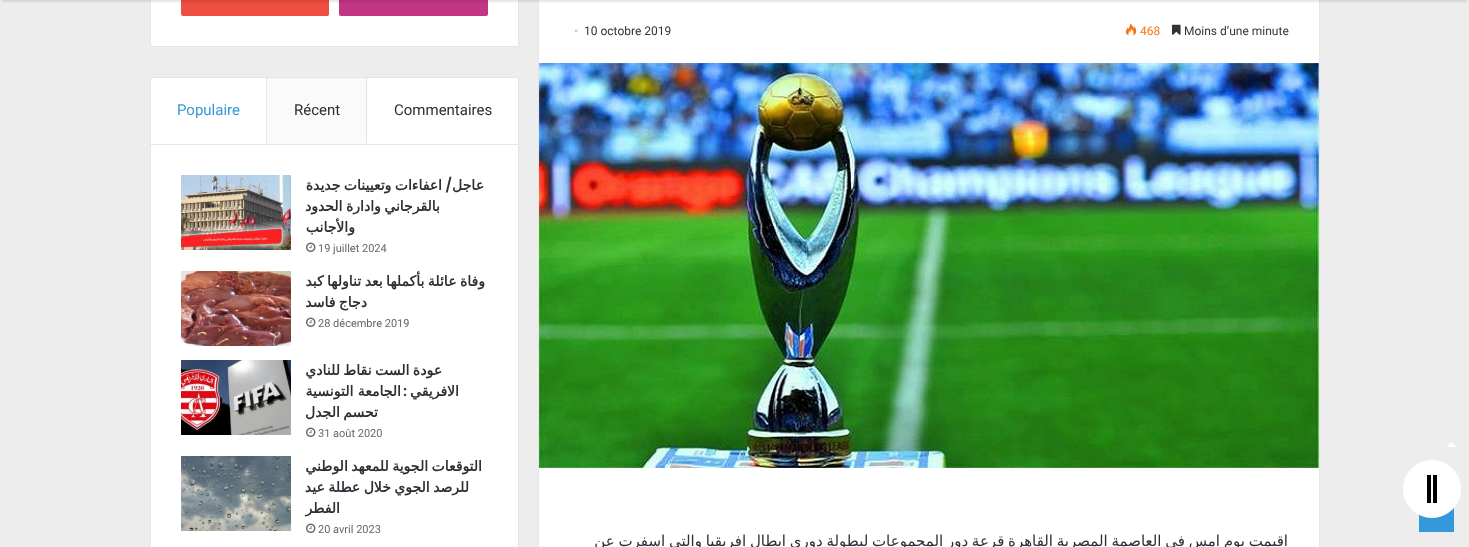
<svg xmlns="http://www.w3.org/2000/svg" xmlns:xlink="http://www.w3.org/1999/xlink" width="1469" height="547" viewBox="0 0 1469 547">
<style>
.cls-1{font:12px Roboto;fill:#333333}
.cls-2{font:12px Roboto;fill:#f47512}
.cls-3{font:12px Liberation Serif;fill:#cccccc}
.cls-4{font:15px DejaVu Sans;direction:rtl;fill:#2c2f34}
.cls-5{font:15px Roboto;fill:#2c2f34}
.cls-6{font:15px Roboto;fill:#3498db}
.cls-7{font:bold 14px DejaVu Sans;direction:rtl;fill:#2c2f34}
.cls-8{font:600 14px Poppins;direction:rtl;fill:#2c2f34}
.cls-9{font:11px Roboto;fill:#666666}
</style>
<rect width="100%" height="100%" fill="#ededed"/>
<image xlink:href="image0.png" x="1446" y="442" width="10" height="5"/>
<rect fill="#3498db" x="1419" y="507" width="35" height="25"/>
<image xlink:href="image2.png" x="1439" y="516" width="1" height="1"/>
<circle fill="#ffffff" cx="1432" cy="489" r="29"/>
<image xlink:href="image1.png" x="1427" y="475" width="10" height="28"/>
<rect fill="#ffffff" stroke="#e6e6e6" x="538.5" y="-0.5" width="781" height="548"/>
<rect fill="#ffffff" stroke="#e5e5e5" x="150.5" y="-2.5" width="368" height="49" rx="1.5"/>
<rect fill="#c13584" x="339" y="-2" width="149" height="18" rx="2"/>
<rect fill="#ef4e41" x="181" y="-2" width="148" height="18" rx="2"/>
<rect fill="#000000" fill-opacity="0.1" filter="blur(1px)" x="2" y="-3" width="1465" height="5"/>
<image xlink:href="image3.png" x="1172" y="24" width="9" height="11"/>
<image xlink:href="image4.png" x="1125" y="23" width="12" height="13"/>
<image xlink:href="image5.png" x="539" y="63" width="780" height="405"/>
<rect fill="#ffffff" stroke="#e5e5e5" x="150.5" y="77.5" width="368" height="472" rx="1.5"/>
<rect fill="#e6e6e6" x="151" y="144" width="367" height="1"/>
<rect fill="#fafafa" x="267" y="78" width="100" height="66"/>
<path fill="#e1e1e1" d="M367 78V144L366 143V78Z"/>
<path fill="#e6e6e6" d="M267 78V144L266 143V78Z"/>
<image xlink:href="image6.png" x="306" y="242" width="10" height="10"/>
<image xlink:href="image7.png" x="181" y="175" width="110" height="75"/>
<image xlink:href="image6.png" x="306" y="317" width="10" height="10"/>
<image xlink:href="image8.png" x="181" y="271" width="110" height="75"/>
<image xlink:href="image6.png" x="306" y="427" width="10" height="10"/>
<image xlink:href="image9.png" x="181" y="360" width="110" height="75"/>
<image xlink:href="image6.png" x="306" y="523" width="10" height="10"/>
<image xlink:href="image10.png" x="181" y="456" width="110" height="75"/>
<text class="cls-1" x="1184" y="35">Moins d’une minute</text>
<text class="cls-2" x="1140" y="35">468</text>
<text class="cls-1" x="584" y="35">10 octobre 2019</text>
<text class="cls-3" x="574" y="35">•</text>
<text class="cls-4" x="1288" y="546" word-spacing="-1">اقيمت يوم امس في العاصمة المصرية القاهرة قرعة دور المجموعات لبطولة دوري ابطال افريقيا والتي اسفرت عن</text>
<text class="cls-5" x="394" y="115">Commentaires</text>
<text class="cls-5" x="294" y="115">Récent</text>
<text class="cls-6" x="177" y="115">Populaire</text>
<text class="cls-7" x="484" y="190">عاجل</text>
<text class="cls-8" x="452" y="190">/</text>
<text class="cls-7" x="442" y="190" word-spacing="-1">اعفاءات وتعيينات جديدة</text>
<text class="cls-7" x="440" y="211" word-spacing="-1">بالقرجاني وادارة الحدود</text>
<text class="cls-7" x="355" y="232">والأجانب</text>
<text class="cls-9" x="318" y="252">19 juillet 2024</text>
<text class="cls-7" x="485" y="286" word-spacing="-1">وفاة عائلة بأكملها بعد تناولها كبد</text>
<text class="cls-7" x="367" y="307" word-spacing="-1">دجاج فاسد</text>
<text class="cls-9" x="318" y="327">28 décembre 2019</text>
<text class="cls-7" x="442" y="375" word-spacing="-1">عودة الست نقاط للنادي</text>
<text class="cls-7" x="459" y="396">الافريقي</text>
<text class="cls-8" x="407" y="396">:</text>
<text class="cls-7" x="401" y="396">الجامعة التونسية</text>
<text class="cls-7" x="378" y="417" word-spacing="-1">تحسم الجدل</text>
<text class="cls-9" x="318" y="437">31 août 2020</text>
<text class="cls-7" x="482" y="471" word-spacing="-1">التوقعات الجوية للمعهد الوطني</text>
<text class="cls-7" x="469" y="492" word-spacing="-1">للرصد الجوي خلال عطلة عيد</text>
<text class="cls-7" x="340" y="513">الفطر</text>
<text class="cls-9" x="318" y="533">20 avril 2023</text>
</svg>
